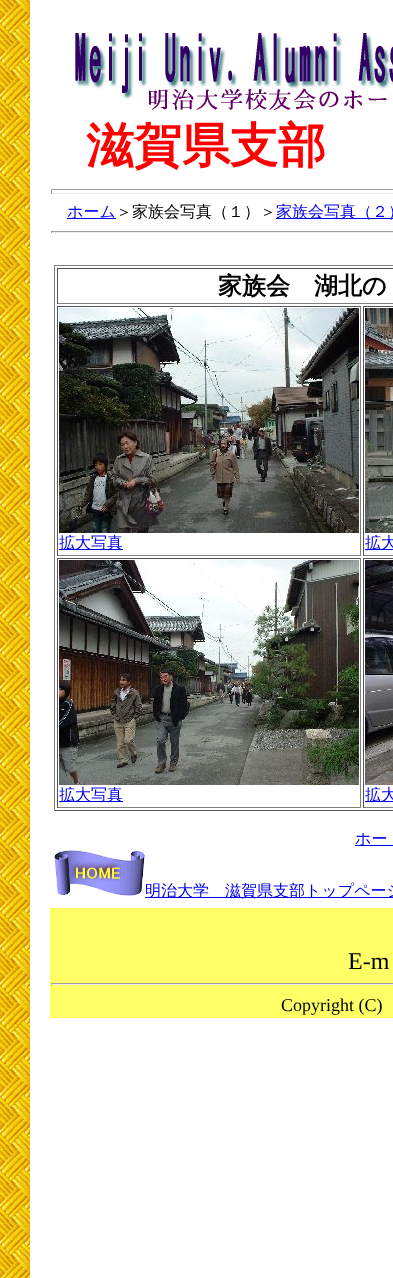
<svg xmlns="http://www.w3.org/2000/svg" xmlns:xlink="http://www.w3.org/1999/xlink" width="393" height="1278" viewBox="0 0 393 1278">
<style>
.cls-1{font:bold 48px WenQuanYi Zen Hei;fill:#ff0000}
.cls-2{font:500 16px WenQuanYi Zen Hei;fill:#0000ee}
.cls-3{font:500 16px WenQuanYi Zen Hei;fill:#000000}
.cls-4{font:bold 24px WenQuanYi Zen Hei;fill:#000000}
.cls-5{font:24px Liberation Serif;fill:#000000}
.cls-6{font:18px Liberation Serif;fill:#000000}
</style>
<rect width="100%" height="100%" fill="#ffffff"/>
<image xlink:href="image0.png" x="0" y="0" width="30" height="1278"/>
<image xlink:href="image1.png" x="75" y="33" width="318" height="77"/>
<rect fill="#9f9f9f" x="51" y="189" width="342" height="1"/>
<rect fill="#eeeeee" x="51" y="193" width="342" height="1"/>
<rect fill="#9f9f9f" x="51" y="189" width="1" height="5"/>
<rect fill="#0000ee" x="67" y="218" width="49" height="1"/>
<rect fill="#0000ee" x="276" y="218" width="117" height="1"/>
<rect fill="#9f9f9f" x="51" y="231" width="342" height="1"/>
<rect fill="#eeeeee" x="51" y="232" width="342" height="1"/>
<rect fill="#9f9f9f" x="51" y="231" width="1" height="2"/>
<rect fill="#808080" x="54" y="265" width="339" height="1"/>
<rect fill="#555555" x="54" y="810" width="339" height="1"/>
<rect fill="#808080" x="54" y="265" width="1" height="546"/>
<rect fill="#555555" x="57" y="268" width="336" height="1"/>
<rect fill="#808080" x="57" y="303" width="336" height="1"/>
<rect fill="#555555" x="57" y="268" width="1" height="36"/>
<rect fill="#555555" x="57" y="306" width="304" height="1"/>
<rect fill="#808080" x="360" y="306" width="1" height="250"/>
<rect fill="#808080" x="57" y="555" width="304" height="1"/>
<rect fill="#555555" x="57" y="306" width="1" height="250"/>
<image xlink:href="image2.png" x="59" y="308" width="300" height="225"/>
<rect fill="#0000ee" x="59" y="549" width="64" height="1"/>
<rect fill="#555555" x="363" y="306" width="30" height="1"/>
<rect fill="#808080" x="363" y="555" width="30" height="1"/>
<rect fill="#555555" x="363" y="306" width="1" height="250"/>
<image xlink:href="image3.png" x="365" y="308" width="28" height="225"/>
<rect fill="#0000ee" x="365" y="549" width="28" height="1"/>
<rect fill="#555555" x="57" y="558" width="304" height="1"/>
<rect fill="#808080" x="360" y="558" width="1" height="250"/>
<rect fill="#808080" x="57" y="807" width="304" height="1"/>
<rect fill="#555555" x="57" y="558" width="1" height="250"/>
<image xlink:href="image4.png" x="59" y="560" width="300" height="225"/>
<rect fill="#0000ee" x="59" y="801" width="64" height="1"/>
<rect fill="#555555" x="363" y="558" width="30" height="1"/>
<rect fill="#808080" x="363" y="807" width="30" height="1"/>
<rect fill="#555555" x="363" y="558" width="1" height="250"/>
<image xlink:href="image5.png" x="365" y="560" width="28" height="225"/>
<rect fill="#0000ee" x="365" y="801" width="28" height="1"/>
<rect fill="#0000ee" x="355" y="845" width="38" height="1"/>
<image xlink:href="image6.png" x="54" y="850" width="91" height="46"/>
<rect fill="#0000ee" x="145" y="897" width="248" height="1"/>
<rect fill="#ffff66" x="50" y="908" width="343" height="110"/>
<rect fill="#9f9f9f" x="51" y="983" width="342" height="1"/>
<rect fill="#eeeeee" x="51" y="984" width="342" height="1"/>
<rect fill="#9f9f9f" x="51" y="983" width="1" height="2"/>
<text class="cls-1" x="86" y="162">滋賀県支部</text>
<text class="cls-2" x="67" y="217">ホーム</text>
<text class="cls-3" x="116" y="217">＞家族会写真（１）＞</text>
<text class="cls-2" x="276" y="217">家族会写真（２）</text>
<text class="cls-4" x="218" y="294">家族会　湖北の</text>
<text class="cls-2" x="59" y="548">拡大写真</text>
<text class="cls-2" x="365" y="548">拡大</text>
<text class="cls-2" x="59" y="800">拡大写真</text>
<text class="cls-2" x="365" y="800">拡大</text>
<text class="cls-2" x="355" y="844">ホー</text>
<text class="cls-2" x="145" y="896">明治大学　滋賀県支部トップページ</text>
<text class="cls-5" x="348" y="969">E-m</text>
<text class="cls-6" x="281" y="1011">Copyright (C)</text>
</svg>
